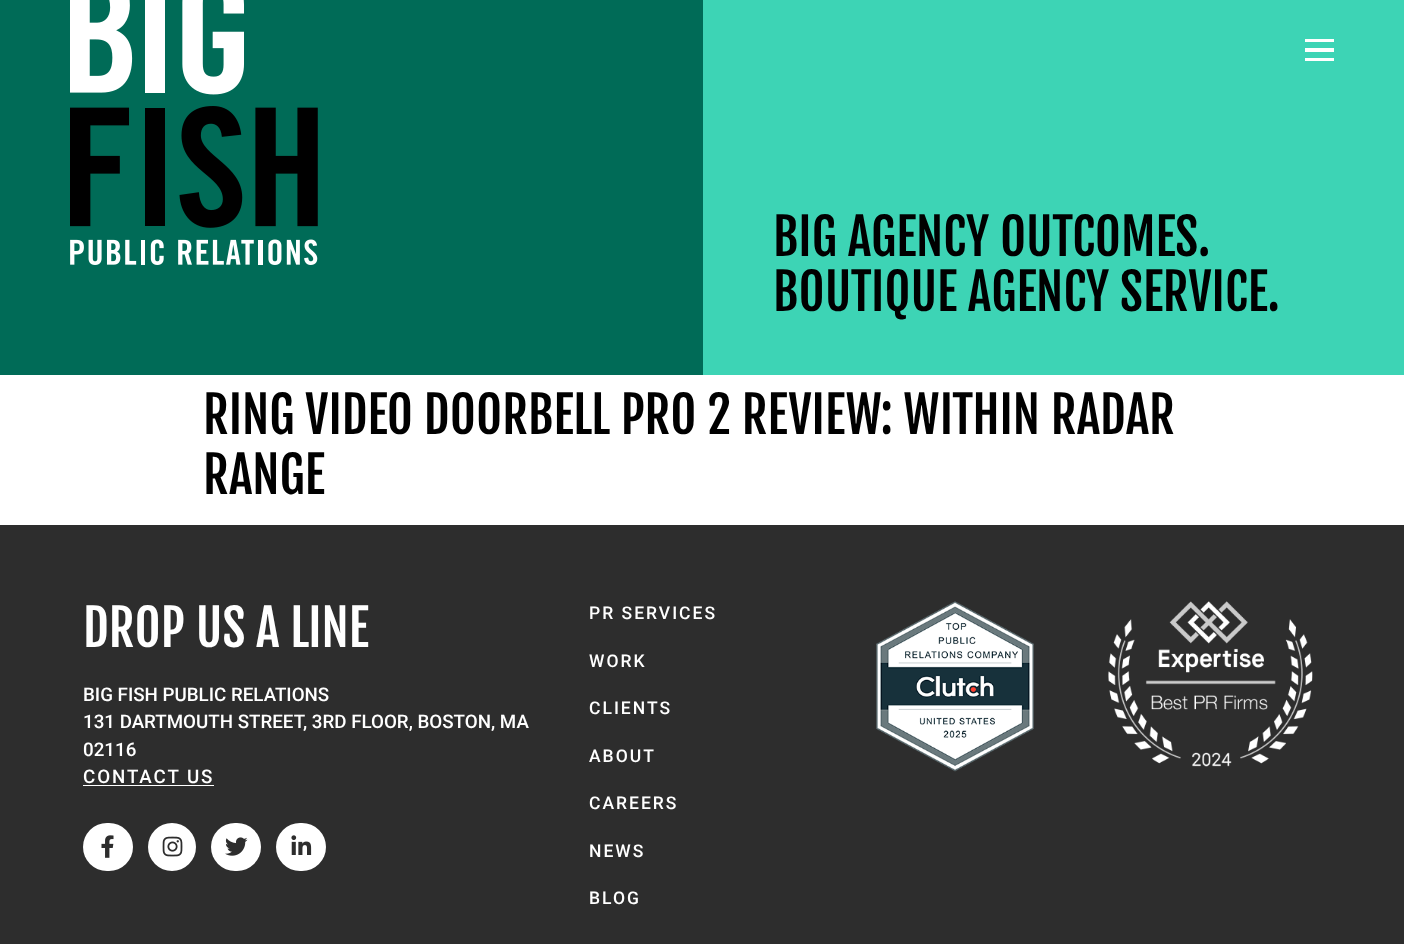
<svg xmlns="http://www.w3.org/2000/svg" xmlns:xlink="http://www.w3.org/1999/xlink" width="1404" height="944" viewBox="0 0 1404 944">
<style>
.cls-1{font:50px Fjalla One;fill:#000000}
.cls-2{font:50px Fjalla One;fill:#ffffff}
.cls-3{font:500 18.75px Roboto;fill:#ffffff}
.cls-4{font:500 18.75px Roboto;letter-spacing:1.9px;fill:#ffffff}
.cls-5{font:500 17.5px Roboto;letter-spacing:2px;fill:#ffffff}
</style>
<rect width="100%" height="100%" fill="#ffffff"/>
<rect fill="#006b57" x="0" y="0" width="703" height="375"/>
<image xlink:href="image0.png" x="70" y="0" width="248" height="265"/>
<rect fill="#3dd4b5" x="703" y="0" width="701" height="375"/>
<rect fill="#ffffff" x="1305" y="39" width="29" height="3"/>
<rect fill="#ffffff" x="1305" y="48" width="29" height="4"/>
<rect fill="#ffffff" x="1305" y="58" width="29" height="3"/>
<rect fill="#2d2d2d" x="0" y="525" width="1404" height="419"/>
<rect fill="#ffffff" x="83" y="785" width="131" height="1"/>
<rect fill="#ffffff" x="83" y="823" width="50" height="48" rx="24"/>
<image xlink:href="image1.png" x="101" y="835" width="13" height="23"/>
<circle fill="#ffffff" cx="172" cy="847" r="24"/>
<image xlink:href="image2.png" x="162" y="836" width="21" height="21"/>
<rect fill="#ffffff" x="211" y="823" width="50" height="48" rx="24"/>
<image xlink:href="image3.png" x="225" y="837" width="23" height="19"/>
<rect fill="#ffffff" x="276" y="823" width="50" height="48" rx="24"/>
<image xlink:href="image4.png" x="291" y="835" width="21" height="20"/>
<image xlink:href="image5.png" x="876" y="601" width="158" height="171"/>
<image xlink:href="image6.png" x="1108" y="601" width="205" height="166"/>
<text class="cls-1"><tspan x="773" y="256">BIG AGENCY OUTCOMES.</tspan><tspan x="773" y="311">BOUTIQUE AGENCY SERVICE.</tspan></text>
<text class="cls-1"><tspan x="203" y="434">RING VIDEO DOORBELL PRO 2 REVIEW: WITHIN RADAR</tspan><tspan x="203" y="494">RANGE</tspan></text>
<text class="cls-2" x="83" y="647">DROP US A LINE</text>
<text class="cls-3"><tspan x="83" y="701">BIG FISH PUBLIC RELATIONS</tspan><tspan x="83" y="728">131 DARTMOUTH STREET, 3RD FLOOR, BOSTON, MA</tspan><tspan x="83" y="756">02116</tspan></text>
<text class="cls-4" x="83" y="783">CONTACT US</text>
<text class="cls-5" x="589" y="619">PR SERVICES</text>
<text class="cls-5" x="589" y="667">WORK</text>
<text class="cls-5" x="589" y="714">CLIENTS</text>
<text class="cls-5" x="589" y="762">ABOUT</text>
<text class="cls-5" x="589" y="809">CAREERS</text>
<text class="cls-5" x="589" y="857">NEWS</text>
<text class="cls-5" x="589" y="904">BLOG</text>
</svg>
